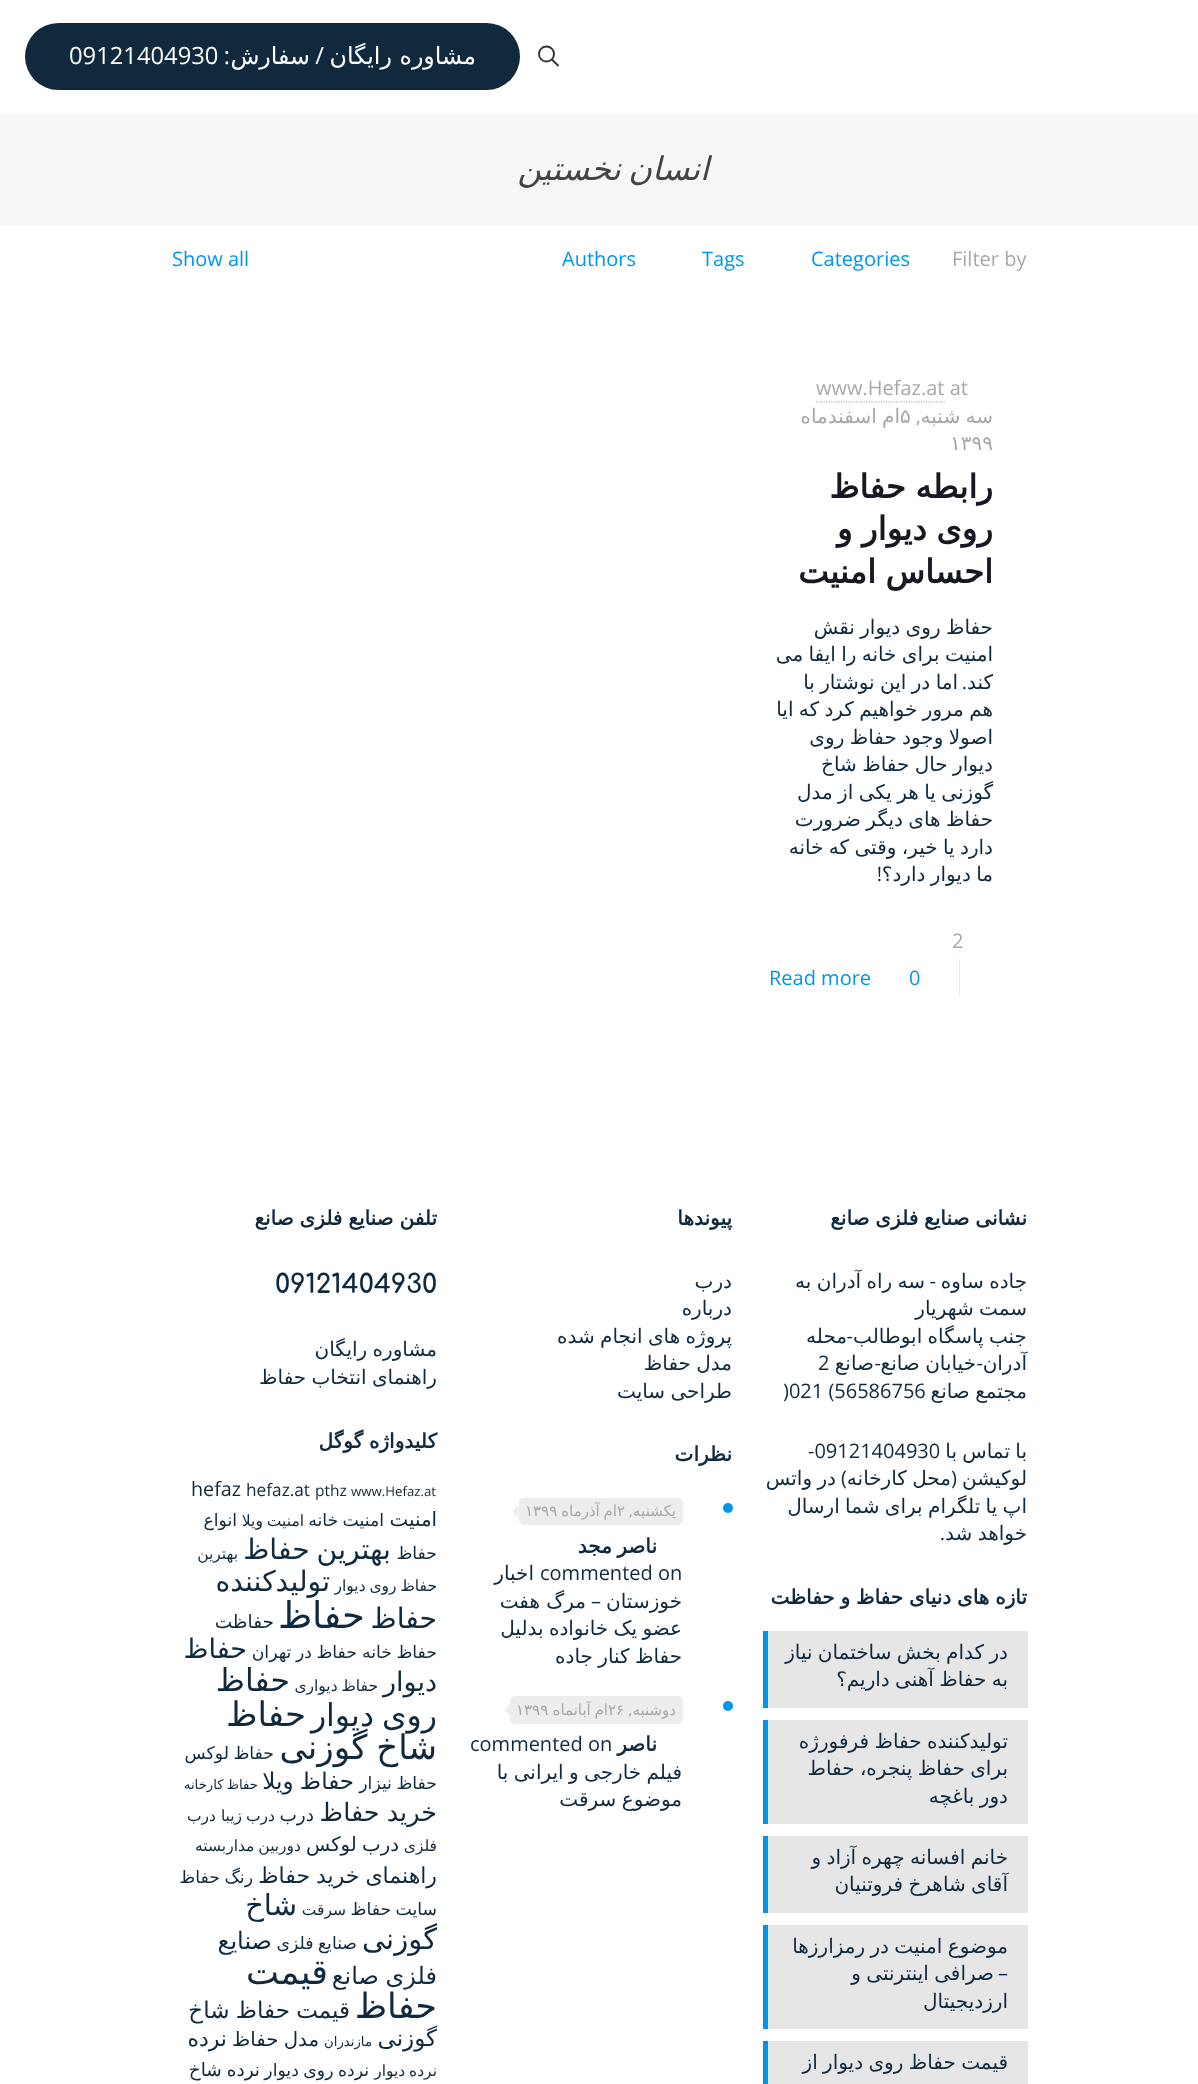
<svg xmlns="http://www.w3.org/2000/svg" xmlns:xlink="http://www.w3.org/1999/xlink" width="1198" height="2084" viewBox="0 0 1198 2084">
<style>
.cls-1{font:23.75px DejaVu Sans;direction:rtl;fill:#ffffff}
.cls-2{font:23.75px Open Sans;direction:rtl;fill:#ffffff}
.cls-3{font:23.75px Open Sans;fill:#ffffff}
.cls-4{font:italic 32.5px DejaVu Sans;letter-spacing:1.25px;direction:rtl;fill:#444444}
.cls-5{font:20px Open Sans;fill:#a8a8a8}
.cls-6{font:20px Open Sans;fill:#0095eb}
.cls-7{font:20px DejaVu Sans;direction:rtl;fill:#a8a8a8}
.cls-8{font:20px Open Sans;direction:rtl;fill:#a8a8a8}
.cls-9{font:20px DejaVu Sans;fill:#a8a8a8}
.cls-10{font:bold 32.5px DejaVu Sans;direction:rtl;fill:#161922}
.cls-11{font:20px DejaVu Sans;direction:rtl;fill:#10293d}
.cls-12{font:20px Open Sans;direction:rtl;fill:#10293d}
.cls-13{font:bold 20px DejaVu Sans;direction:rtl;fill:#10293d}
.cls-14{font:20px Open Sans;fill:#10293d}
.cls-15{font:15px DejaVu Sans;direction:rtl;fill:#a8a8a8}
.cls-16{font:15px DejaVu Sans;fill:#a8a8a8}
.cls-17{font:bold 26.25px Comfortaa;fill:#10293d}
.cls-18{font:13.25px Open Sans;fill:#10293d}
.cls-19{font:15.5px Open Sans;fill:#10293d}
.cls-20{font:17.25px Open Sans;fill:#10293d}
.cls-21{font:19.75px Open Sans;fill:#10293d}
.cls-22{font:19.75px DejaVu Sans;direction:rtl;fill:#10293d}
.cls-23{font:17.25px DejaVu Sans;direction:rtl;fill:#10293d}
.cls-24{font:15.5px DejaVu Sans;direction:rtl;fill:#10293d}
.cls-25{font:28.25px DejaVu Sans;direction:rtl;fill:#10293d}
.cls-26{font:37px DejaVu Sans;direction:rtl;fill:#10293d}
.cls-27{font:18.5px DejaVu Sans;direction:rtl;fill:#10293d}
.cls-28{font:27px DejaVu Sans;direction:rtl;fill:#10293d}
.cls-29{font:31.5px DejaVu Sans;direction:rtl;fill:#10293d}
.cls-30{font:34px DejaVu Sans;direction:rtl;fill:#10293d}
.cls-31{font:23px DejaVu Sans;direction:rtl;fill:#10293d}
.cls-32{font:13.25px DejaVu Sans;direction:rtl;fill:#10293d}
.cls-33{font:25.5px DejaVu Sans;direction:rtl;fill:#10293d}
.cls-34{font:22px DejaVu Sans;direction:rtl;fill:#10293d}
.cls-35{font:29px DejaVu Sans;direction:rtl;fill:#10293d}
.cls-36{font:24px DejaVu Sans;direction:rtl;fill:#10293d}
.cls-37{font:35px DejaVu Sans;direction:rtl;fill:#10293d}
</style>
<rect width="100%" height="100%" fill="#ffffff"/>
<circle fill="none" stroke="#333333" stroke-width="1.9" cx="546.5" cy="54" r="7.5"/>
<path fill="none" stroke="#333333" stroke-width="1.9" d="M552 59.5L558.5 66"/>
<rect fill="#10293d" x="25" y="23" width="495" height="67" rx="33.5"/>
<rect fill="#f7f7f7" x="0" y="114" width="1198" height="112"/>
<path fill="none" stroke="#a8a8a8" stroke-width="1.2" stroke-dasharray="1.25 1.25" d="M816 402H945"/>
<rect fill="#ebebeb" x="959" y="959" width="1" height="37"/>
<rect fill="#e6e6e6" x="768" y="1631" width="260" height="77"/>
<rect fill="#0095eb" x="763" y="1631" width="5" height="77"/>
<rect fill="#e6e6e6" x="768" y="1720" width="260" height="104"/>
<rect fill="#0095eb" x="763" y="1720" width="5" height="104"/>
<rect fill="#e6e6e6" x="768" y="1836" width="260" height="77"/>
<rect fill="#0095eb" x="763" y="1836" width="5" height="77"/>
<rect fill="#e6e6e6" x="768" y="1925" width="260" height="104"/>
<rect fill="#0095eb" x="763" y="1925" width="5" height="104"/>
<rect fill="#e6e6e6" x="768" y="2041" width="260" height="43"/>
<rect fill="#0095eb" x="763" y="2041" width="5" height="43"/>
<circle fill="#0095eb" cx="728" cy="1508" r="5"/>
<rect fill="#ededed" x="519" y="1498" width="164" height="27" rx="5"/>
<path fill="#ededed" d="M518.5 1505V1517.5L512.5 1511Z"/>
<circle fill="#0095eb" cx="728" cy="1706" r="5"/>
<rect fill="#ededed" x="510" y="1696" width="173" height="28" rx="5"/>
<path fill="#ededed" d="M510 1704V1716L504 1710Z"/>
<text class="cls-1" x="476" y="64">مشاوره رایگان</text>
<text class="cls-2" x="324" y="64">/</text>
<text class="cls-1" x="310" y="64">سفارش</text>
<text class="cls-2" x="230" y="64">:</text>
<text class="cls-3" x="69" y="64">09121404930</text>
<text class="cls-4" x="709" y="180" word-spacing="-3">انسان نخستین</text>
<text class="cls-5" x="952" y="266">Filter by</text>
<text class="cls-6" x="811" y="266">Categories</text>
<text class="cls-6" x="702" y="266">Tags</text>
<text class="cls-6" x="562" y="266">Authors</text>
<text class="cls-6" x="172" y="266">Show all</text>
<text class="cls-5" x="816" y="395">www.Hefaz.at at</text>
<text class="cls-7" x="993" y="423" word-spacing="-1">سه شنبه</text>
<text class="cls-8" x="921" y="423">,</text>
<text class="cls-9" x="900" y="423">۵</text>
<text class="cls-7" x="900" y="423" word-spacing="-1">ام اسفندماه</text>
<text class="cls-9" x="950" y="450">۱۳۹۹</text>
<text class="cls-10"><tspan x="993" y="498" word-spacing="-1">رابطه حفاظ</tspan><tspan x="993" y="540" word-spacing="-1">روی دیوار و</tspan><tspan x="993" y="583" word-spacing="-1">احساس امنیت</tspan></text>
<text class="cls-11"><tspan x="993" y="634" word-spacing="-1">حفاظ روی دیوار نقش</tspan><tspan x="993" y="661" word-spacing="-1">امنیت برای خانه را ایفا می</tspan><tspan x="993" y="689">کند</tspan></text>
<text class="cls-12" x="967" y="689">.</text>
<text class="cls-11" x="958" y="689" word-spacing="-1">اما در این نوشتار با</text>
<text class="cls-11"><tspan x="993" y="716" word-spacing="-1">هم مرور خواهیم کرد که ایا</tspan><tspan x="993" y="744" word-spacing="-1">اصولا وجود حفاظ روی</tspan><tspan x="993" y="771" word-spacing="-1">دیوار حال حفاظ شاخ</tspan><tspan x="993" y="799" word-spacing="-1">گوزنی یا هر یکی از مدل</tspan><tspan x="993" y="826" word-spacing="-1">حفاظ های دیگر ضرورت</tspan><tspan x="993" y="854" word-spacing="-1">دارد یا خیر، وقتی که خانه</tspan><tspan x="993" y="881" word-spacing="-1">ما دیوار دارد؟</tspan></text>
<text class="cls-12" x="882" y="881">!</text>
<text class="cls-5" x="952" y="948">2</text>
<text class="cls-6" x="909" y="985">0</text>
<text class="cls-6" x="769" y="985">Read more</text>
<text class="cls-13" x="1027" y="1225" word-spacing="-0.5">نشانی صنایع فلزی صانع</text>
<text class="cls-11" x="1027" y="1288" word-spacing="-1">جاده ساوه</text>
<text class="cls-12" x="936" y="1288">-</text>
<text class="cls-11" x="925" y="1288" word-spacing="-1">سه راه آدران به</text>
<text class="cls-11"><tspan x="1027" y="1315" word-spacing="-1">سمت شهریار</tspan><tspan x="1027" y="1343" word-spacing="-1">جنب پاسگاه ابوطالب</tspan></text>
<text class="cls-12" x="853" y="1343">-</text>
<text class="cls-11" x="847" y="1343">محله</text>
<text class="cls-11" x="1027" y="1370">آدران</text>
<text class="cls-12" x="983" y="1370">-</text>
<text class="cls-11" x="976" y="1370" word-spacing="-1">خیابان صانع</text>
<text class="cls-12" x="881" y="1370">-</text>
<text class="cls-11" x="874" y="1370">صانع</text>
<text class="cls-14" x="818" y="1370">2</text>
<text class="cls-11" x="1027" y="1398" word-spacing="-1">مجتمع صانع</text>
<text class="cls-14" x="783" y="1398">)021 (56586756</text>
<text class="cls-11" x="1027" y="1458" word-spacing="-1">با تماس با</text>
<text class="cls-14" x="808" y="1458">-09121404930</text>
<text class="cls-11" x="1027" y="1485">لوکیشن</text>
<text class="cls-12" x="957" y="1485">(</text>
<text class="cls-11" x="951" y="1485" word-spacing="-1">محل کارخانه</text>
<text class="cls-12" x="847" y="1485">)</text>
<text class="cls-11" x="836" y="1485" word-spacing="-1">در واتس</text>
<text class="cls-11"><tspan x="1027" y="1513" word-spacing="-1">اپ یا تلگرام برای شما ارسال</tspan><tspan x="1027" y="1540" word-spacing="-1">خواهد شد</tspan></text>
<text class="cls-12" x="945" y="1540">.</text>
<text class="cls-13" x="1027" y="1604" word-spacing="-0.5">تازه های دنیای حفاظ و حفاظت</text>
<text class="cls-11"><tspan x="1008" y="1659" word-spacing="-1">در کدام بخش ساختمان نیاز</tspan><tspan x="1008" y="1686" word-spacing="-1">به حفاظ آهنی داریم؟</tspan></text>
<text class="cls-11"><tspan x="1008" y="1748" word-spacing="-1">تولیدکننده حفاظ فرفورژه</tspan><tspan x="1008" y="1775" word-spacing="-1">برای حفاظ پنجره، حفاط</tspan><tspan x="1008" y="1803" word-spacing="-1">دور باغچه</tspan></text>
<text class="cls-11"><tspan x="1008" y="1864" word-spacing="-1">خانم افسانه چهره آزاد و</tspan><tspan x="1008" y="1891" word-spacing="-1">آقای شاهرخ فروتنیان</tspan></text>
<text class="cls-11" x="1008" y="1953" word-spacing="-1">موضوع امنیت در رمزارزها</text>
<text class="cls-12" x="1008" y="1980">–</text>
<text class="cls-11" x="994" y="1980" word-spacing="-1">صرافی اینترنتی و</text>
<text class="cls-11" x="1008" y="2008">ارزدیجیتال</text>
<text class="cls-11" x="1008" y="2069" word-spacing="-1">قیمت حفاظ روی دیوار از</text>
<text class="cls-13" x="732" y="1225">پیوندها</text>
<text class="cls-11"><tspan x="732" y="1288">درب</tspan><tspan x="732" y="1315">درباره</tspan><tspan x="732" y="1343" word-spacing="-1">پروژه های انجام شده</tspan><tspan x="732" y="1370" word-spacing="-1">مدل حفاظ</tspan><tspan x="732" y="1398" word-spacing="-1">طراحی سایت</tspan></text>
<text class="cls-13" x="732" y="1461">نظرات</text>
<text class="cls-15" x="676" y="1516">یکشنبه,</text>
<text class="cls-16" x="617" y="1516">۲</text>
<text class="cls-15" x="617" y="1516" word-spacing="-1">ام آذرماه</text>
<text class="cls-16" x="525" y="1516">۱۳۹۹</text>
<text class="cls-13" x="657" y="1553" word-spacing="-1">ناصر مجد</text>
<text class="cls-14" x="540" y="1580">commented on</text>
<text class="cls-11" x="534" y="1580">اخبار</text>
<text class="cls-11" x="682" y="1608">خوزستان</text>
<text class="cls-12" x="601" y="1608">–</text>
<text class="cls-11" x="586" y="1608">مرگ هفت</text>
<text class="cls-11"><tspan x="682" y="1635" word-spacing="-1">عضو یک خانواده بدلیل</tspan><tspan x="682" y="1663" word-spacing="-1">حفاظ کنار جاده‌</tspan></text>
<text class="cls-15" x="676" y="1715">دوشنبه,</text>
<text class="cls-16" x="608" y="1715">۲۶</text>
<text class="cls-15" x="608" y="1715" word-spacing="-1">ام آبانماه</text>
<text class="cls-16" x="516" y="1715">۱۳۹۹</text>
<text class="cls-13" x="657" y="1751">ناصر</text>
<text class="cls-14" x="470" y="1751">commented on</text>
<text class="cls-11"><tspan x="682" y="1779" word-spacing="-1">فیلم خارجی و ایرانی با</tspan><tspan x="682" y="1806" word-spacing="-1">موضوع سرقت</tspan></text>
<text class="cls-13" x="437" y="1225" word-spacing="-0.5">تلفن صنایع فلزی صانع</text>
<text class="cls-17" x="275" y="1293">09121404930</text>
<text class="cls-11"><tspan x="437" y="1356" word-spacing="-1">مشاوره رایگان</tspan><tspan x="437" y="1384" word-spacing="-1">راهنمای انتخاب حفاظ</tspan></text>
<text class="cls-13" x="437" y="1448" word-spacing="-0.5">کلیدواژه گوگل</text>
<text class="cls-18" x="351" y="1496">www.Hefaz.at</text>
<text class="cls-19" x="315" y="1496">pthz</text>
<text class="cls-20" x="246" y="1496">hefaz.at</text>
<text class="cls-21" x="191" y="1496">hefaz</text>
<text class="cls-22" x="437" y="1526">امنیت</text>
<text class="cls-23" x="384" y="1526" word-spacing="-1">امنیت خانه</text>
<text class="cls-24" x="304" y="1526" word-spacing="-1">امنیت ویلا</text>
<text class="cls-23" x="237" y="1526">انواع</text>
<text class="cls-23" x="437" y="1559">حفاظ</text>
<text class="cls-25" x="391" y="1559" word-spacing="-2">بهترین حفاظ</text>
<text class="cls-24" x="238" y="1559">بهترین</text>
<text class="cls-24" x="437" y="1591" word-spacing="-1">حفاظ روی دیوار</text>
<text class="cls-25" x="330" y="1591">تولیدکننده</text>
<text class="cls-25" x="437" y="1628">حفاظ</text>
<text class="cls-26" x="365" y="1628">حفاظ</text>
<text class="cls-27" x="274" y="1628">حفاظت</text>
<text class="cls-23" x="437" y="1658" word-spacing="-1">حفاظ خانه</text>
<text class="cls-23" x="357" y="1658" word-spacing="-1">حفاظ در تهران</text>
<text class="cls-28" x="247" y="1658">حفاظ</text>
<text class="cls-28" x="437" y="1691">دیوار</text>
<text class="cls-24" x="378" y="1691" word-spacing="-1">حفاظ دیواری</text>
<text class="cls-29" x="290" y="1691">حفاظ</text>
<text class="cls-29" x="437" y="1726" word-spacing="-2">روی دیوار</text>
<text class="cls-30" x="306" y="1726">حفاظ</text>
<text class="cls-30" x="437" y="1759" word-spacing="-2">شاخ گوزنی</text>
<text class="cls-23" x="274" y="1759" word-spacing="-1">حفاظ لوکس</text>
<text class="cls-23" x="437" y="1789" word-spacing="-1">حفاظ نیزار</text>
<text class="cls-31" x="354" y="1789" word-spacing="-1">حفاظ ویلا</text>
<text class="cls-32" x="258" y="1789" word-spacing="-1">حفاظ کارخانه</text>
<text class="cls-33" x="437" y="1821" word-spacing="-1">خرید حفاظ</text>
<text class="cls-27" x="314" y="1821">درب</text>
<text class="cls-24" x="275" y="1821" word-spacing="-1">درب زیبا</text>
<text class="cls-24" x="216" y="1821">درب</text>
<text class="cls-24" x="437" y="1851">فلزی</text>
<text class="cls-22" x="399" y="1851" word-spacing="-1">درب لوکس</text>
<text class="cls-24" x="301" y="1851" word-spacing="-1">دوربین مداربسته</text>
<text class="cls-34" x="437" y="1883" word-spacing="-1">راهنمای خرید حفاظ</text>
<text class="cls-23" x="253" y="1883" word-spacing="-1">رنگ حفاظ</text>
<text class="cls-23" x="437" y="1915" word-spacing="-1">سایت حفاظ</text>
<text class="cls-24" x="346" y="1915">سرقت</text>
<text class="cls-35" x="297" y="1915">شاخ</text>
<text class="cls-35" x="437" y="1949">گوزنی</text>
<text class="cls-23" x="357" y="1949" word-spacing="-1">صنایع فلزی</text>
<text class="cls-36" x="272" y="1949">صنایع</text>
<text class="cls-36" x="437" y="1984" word-spacing="-1">فلزی صانع</text>
<text class="cls-37" x="328" y="1984">قیمت</text>
<text class="cls-37" x="437" y="2018">حفاظ</text>
<text class="cls-31" x="350" y="2018" word-spacing="-1">قیمت حفاظ شاخ</text>
<text class="cls-31" x="437" y="2046">گوزنی</text>
<text class="cls-32" x="372" y="2046">مازندران</text>
<text class="cls-22" x="319" y="2046" word-spacing="-1">مدل حفاظ</text>
<text class="cls-34" x="227" y="2046">نرده</text>
<text class="cls-24" x="437" y="2076" word-spacing="-1">نرده دیوار</text>
<text class="cls-23" x="369" y="2076" word-spacing="-1">نرده روی دیوار</text>
<text class="cls-27" x="260" y="2076" word-spacing="-1">نرده شاخ</text>
</svg>
